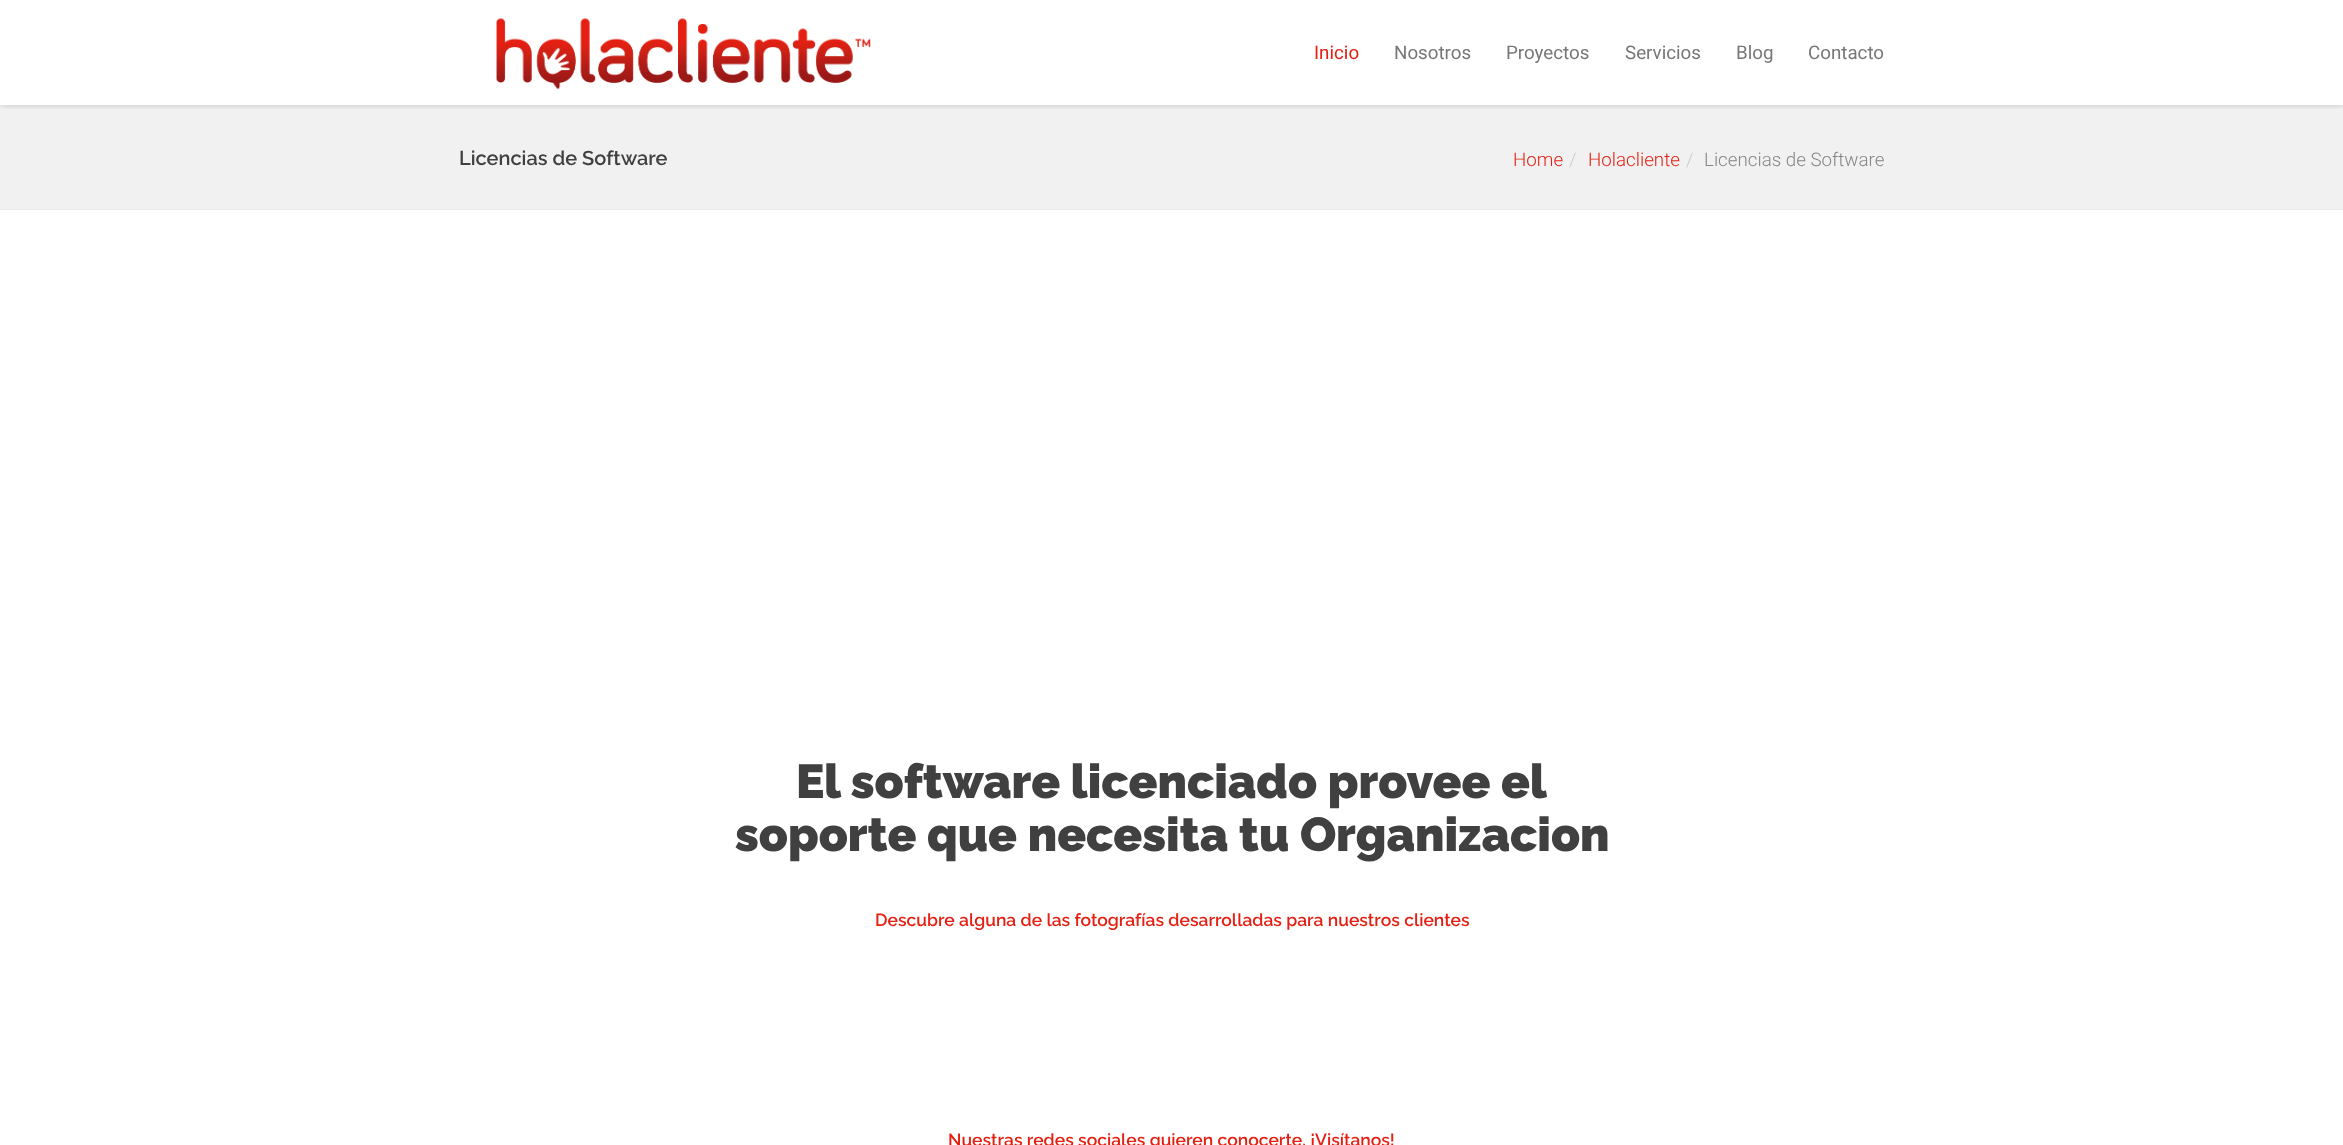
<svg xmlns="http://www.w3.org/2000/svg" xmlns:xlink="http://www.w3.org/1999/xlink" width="2343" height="1145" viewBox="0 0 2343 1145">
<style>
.cls-1{font:18.75px Roboto;fill:#e52012}
.cls-2{font:18.75px Roboto;fill:#777777}
.cls-3{font:600 20px Raleway;fill:#404040}
.cls-4{font:300 18.75px Roboto;fill:#e52012}
.cls-5{font:300 18.75px Roboto;fill:#cccccc}
.cls-6{font:300 18.75px Roboto;fill:#868686}
.cls-7{font:900 47.5px Raleway;fill:#404040}
.cls-8{font:600 17.5px Raleway;fill:#e52012}
</style>
<defs>
<clipPath id="clip1"><rect x="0" y="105" width="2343" height="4"/></clipPath>
</defs>
<rect width="100%" height="100%" fill="#ffffff"/>
<rect fill="#f1f1f1" x="0" y="105" width="2343" height="104"/>
<g clip-path="url(#clip1)">
<rect fill="#000000" fill-opacity="0.19" filter="blur(3px)" x="0" y="0" width="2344" height="105"/>
</g>
<image xlink:href="image0.png" x="496" y="18" width="375" height="72"/>
<rect fill="#eaeaea" x="0" y="209" width="2343" height="1"/>
<text class="cls-1" x="1314" y="59">Inicio</text>
<text class="cls-2" x="1394" y="59">Nosotros</text>
<text class="cls-2" x="1506" y="59">Proyectos</text>
<text class="cls-2" x="1625" y="59">Servicios</text>
<text class="cls-2" x="1736" y="59">Blog</text>
<text class="cls-2" x="1808" y="59">Contacto</text>
<text class="cls-3" x="459" y="165">Licencias de Software</text>
<text class="cls-4" x="1513" y="166">Home</text>
<text class="cls-5" x="1569" y="166">/</text>
<text class="cls-4" x="1588" y="166">Holacliente</text>
<text class="cls-5" x="1686" y="166">/</text>
<text class="cls-6" x="1704" y="166">Licencias de Software</text>
<text class="cls-7" x="796" y="798">El software licenciado provee el</text>
<text class="cls-7" x="735" y="851">soporte que necesita tu Organizacion</text>
<text class="cls-8" x="875" y="926">Descubre alguna de las fotografías desarrolladas para nuestros clientes</text>
<text class="cls-8" x="948" y="1146">Nuestras redes sociales quieren conocerte. ¡Visítanos!</text>
</svg>
